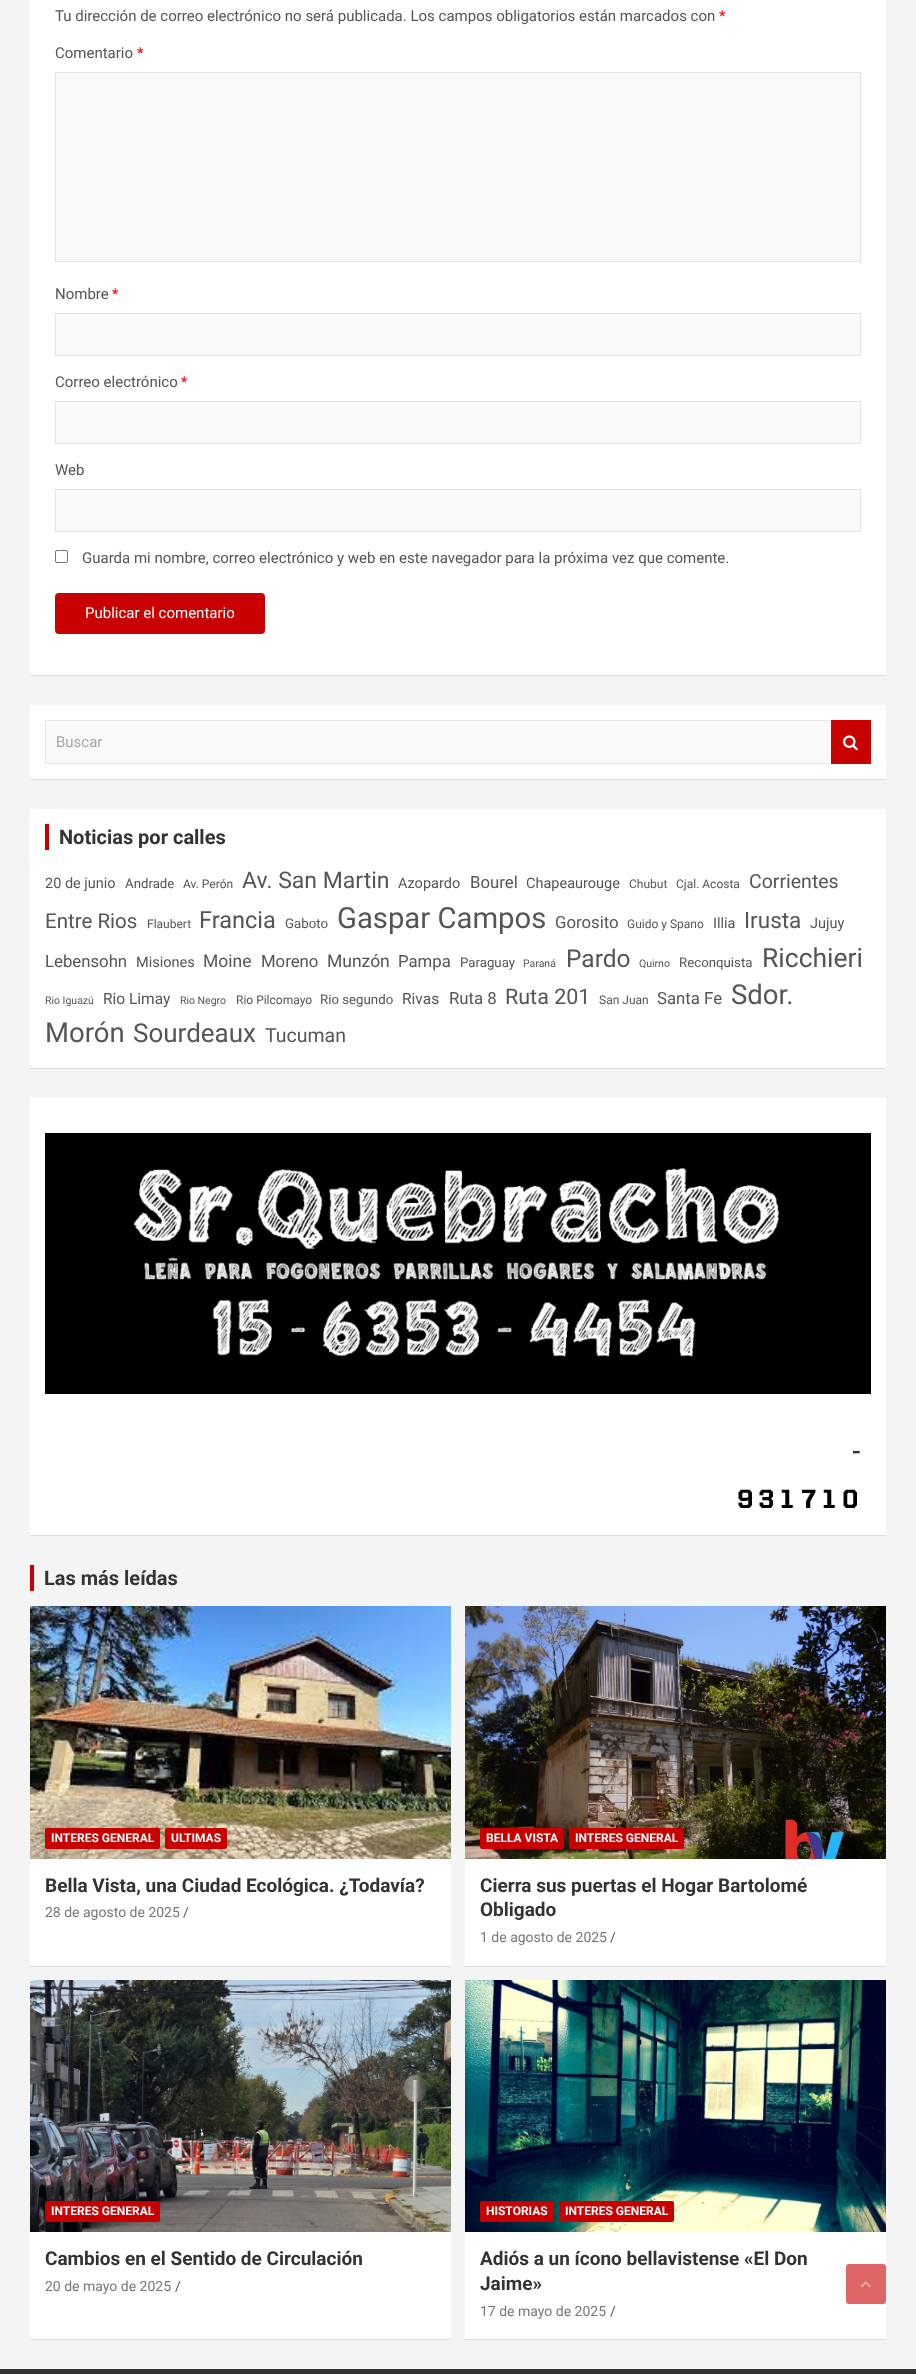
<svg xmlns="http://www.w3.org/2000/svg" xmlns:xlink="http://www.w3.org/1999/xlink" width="916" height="2374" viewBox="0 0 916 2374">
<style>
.cls-1{font:15px Roboto;fill:#555555}
.cls-2{font:15px Roboto;fill:#ff0000}
.cls-3{font:15px Roboto;fill:#ffffff}
.cls-4{font:15px Roboto;fill:#a7a7a7}
.cls-5{font:bold 20px Roboto;fill:#333333}
.cls-6{font:14.5px Roboto;fill:#555555}
.cls-7{font:13.25px Roboto;fill:#555555}
.cls-8{font:12px Roboto;fill:#555555}
.cls-9{font:23px Roboto;fill:#555555}
.cls-10{font:16.75px Roboto;fill:#555555}
.cls-11{font:19.5px Roboto;fill:#555555}
.cls-12{font:20.5px Roboto;fill:#555555}
.cls-13{font:23.5px Roboto;fill:#555555}
.cls-14{font:29.25px Roboto;fill:#555555}
.cls-15{font:22.5px Roboto;fill:#555555}
.cls-16{font:17.5px Roboto;fill:#555555}
.cls-17{font:10.5px Roboto;fill:#555555}
.cls-18{font:24.5px Roboto;fill:#555555}
.cls-19{font:26.5px Roboto;fill:#555555}
.cls-20{font:15.5px Roboto;fill:#555555}
.cls-21{font:21.5px Roboto;fill:#555555}
.cls-22{font:27.5px Roboto;fill:#555555}
.cls-23{font:26px Roboto;fill:#555555}
.cls-24{font:500 26px Roboto;fill:#333333}
.cls-25{font:bold 12px Roboto;fill:#ffffff}
.cls-26{font:bold 19px Roboto;fill:#333333}
.cls-27{font:14px Roboto;fill:#777777}
.cls-28{font:14px Roboto;fill:#555555}
</style>
<rect width="100%" height="100%" fill="#f4f4f4"/>
<rect fill="#000000" fill-opacity="0.1" filter="blur(0.5px)" x="30" y="-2" width="856" height="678"/>
<rect fill="#ffffff" x="30" y="0" width="856" height="675"/>
<rect fill="#f9f9f9" stroke="#e3e3e3" x="55.5" y="72.5" width="805" height="189"/>
<rect fill="#f9f9f9" stroke="#e3e3e3" x="55.5" y="313.5" width="805" height="42"/>
<rect fill="#f9f9f9" stroke="#e3e3e3" x="55.5" y="401.5" width="805" height="42"/>
<rect fill="#f9f9f9" stroke="#e3e3e3" x="55.5" y="489.5" width="805" height="42"/>
<rect fill="none" stroke="#767676" x="55.5" y="550.5" width="12" height="12" rx="1.5"/>
<rect fill="#c80000" x="55" y="593" width="210" height="41" rx="4"/>
<rect fill="#000000" fill-opacity="0.1" filter="blur(0.5px)" x="30" y="706" width="856" height="74"/>
<rect fill="#ffffff" x="30" y="705" width="856" height="74"/>
<rect fill="#f9f9f9" x="46" y="721" width="785" height="42"/>
<path fill="#e8e8e8" d="M45 720H831V721H46Z"/>
<path fill="#e8e8e8" d="M831 764H45L46 763H831Z"/>
<path fill="#000000" fill-opacity="0.09" d="M45 764V720L46 721V763Z"/>
<rect fill="#c80000" x="831" y="720" width="40" height="44"/>
<image xlink:href="image0.png" x="843" y="735" width="15" height="16"/>
<rect fill="#000000" fill-opacity="0.1" filter="blur(0.5px)" x="30" y="810" width="856" height="259"/>
<rect fill="#ffffff" x="30" y="809" width="856" height="259"/>
<rect fill="#c80000" x="45" y="824" width="4" height="26"/>
<rect fill="#000000" fill-opacity="0.1" filter="blur(0.5px)" x="30" y="1099" width="856" height="437"/>
<rect fill="#ffffff" x="30" y="1098" width="856" height="437"/>
<image xlink:href="image1.png" x="45" y="1133" width="826" height="261"/>
<image xlink:href="image2.png" x="738" y="1489" width="14" height="19"/>
<image xlink:href="image3.png" x="759" y="1489" width="14" height="19"/>
<image xlink:href="image4.png" x="781" y="1489" width="12" height="19"/>
<image xlink:href="image5.png" x="802" y="1489" width="14" height="19"/>
<image xlink:href="image4.png" x="823" y="1489" width="12" height="19"/>
<image xlink:href="image6.png" x="843" y="1489" width="14" height="19"/>
<rect fill="#c80000" x="30" y="1565" width="4" height="26"/>
<rect fill="#000000" fill-opacity="0.1" filter="blur(0.5px)" x="30" y="1607" width="421" height="360"/>
<rect fill="#ffffff" x="30" y="1859" width="421" height="107"/>
<image xlink:href="image7.png" x="30" y="1606" width="421" height="253"/>
<rect fill="#c80000" x="45" y="1828" width="115" height="21" rx="2"/>
<rect fill="#c80000" x="165" y="1828" width="62" height="21" rx="2"/>
<rect fill="#000000" fill-opacity="0.1" filter="blur(0.5px)" x="465" y="1607" width="421" height="360"/>
<rect fill="#ffffff" x="465" y="1859" width="421" height="107"/>
<image xlink:href="image8.png" x="465" y="1606" width="421" height="253"/>
<rect fill="#c80000" x="480" y="1828" width="84" height="21" rx="2"/>
<rect fill="#c80000" x="569" y="1828" width="115" height="21" rx="2"/>
<rect fill="#000000" fill-opacity="0.1" filter="blur(0.5px)" x="30" y="1981" width="421" height="359"/>
<rect fill="#ffffff" x="30" y="2232" width="421" height="107"/>
<image xlink:href="image9.png" x="30" y="1980" width="421" height="252"/>
<rect fill="#c80000" x="45" y="2201" width="115" height="21" rx="2"/>
<rect fill="#000000" fill-opacity="0.1" filter="blur(0.5px)" x="465" y="1981" width="421" height="359"/>
<rect fill="#ffffff" x="465" y="2232" width="421" height="107"/>
<image xlink:href="image10.png" x="465" y="1980" width="421" height="252"/>
<rect fill="#c80000" x="480" y="2201" width="74" height="21" rx="2"/>
<rect fill="#c80000" x="559" y="2201" width="115" height="21" rx="2"/>
<rect fill="#333333" x="0" y="2369" width="916" height="5"/>
<rect fill="#de6666" x="846" y="2264" width="40" height="40" rx="3"/>
<image xlink:href="image11.png" x="860" y="2281" width="11" height="7"/>
<text class="cls-1" x="55" y="21">Tu dirección de correo electrónico no será publicada. Los campos obligatorios están marcados con</text>
<text class="cls-2" x="719" y="21">*</text>
<text class="cls-1" x="55" y="58">Comentario</text>
<text class="cls-2" x="137" y="58">*</text>
<text class="cls-1" x="55" y="299">Nombre</text>
<text class="cls-2" x="112" y="299">*</text>
<text class="cls-1" x="55" y="387">Correo electrónico</text>
<text class="cls-2" x="181" y="387">*</text>
<text class="cls-1" x="55" y="475">Web</text>
<text class="cls-1" x="82" y="563">Guarda mi nombre, correo electrónico y web en este navegador para la próxima vez que comente.</text>
<text class="cls-3" x="85" y="618">Publicar el comentario</text>
<text class="cls-4" x="56" y="747">Buscar</text>
<text class="cls-5" x="59" y="844">Noticias por calles</text>
<text class="cls-6" x="45" y="888">20 de junio</text>
<text class="cls-7" x="125" y="888">Andrade</text>
<text class="cls-8" x="183" y="888">Av. Perón</text>
<text class="cls-9" x="242" y="888">Av. San Martin</text>
<text class="cls-6" x="398" y="888">Azopardo</text>
<text class="cls-10" x="470" y="888">Bourel</text>
<text class="cls-6" x="526" y="888">Chapeaurouge</text>
<text class="cls-8" x="629" y="888">Chubut</text>
<text class="cls-8" x="676" y="888">Cjal. Acosta</text>
<text class="cls-11" x="749" y="888">Corrientes</text>
<text class="cls-12" x="45" y="928">Entre Rios</text>
<text class="cls-8" x="147" y="928">Flaubert</text>
<text class="cls-13" x="199" y="928">Francia</text>
<text class="cls-7" x="285" y="928">Gaboto</text>
<text class="cls-14" x="337" y="928">Gaspar Campos</text>
<text class="cls-10" x="555" y="928">Gorosito</text>
<text class="cls-8" x="627" y="928">Guido y Spano</text>
<text class="cls-6" x="713" y="928">Illia</text>
<text class="cls-15" x="744" y="928">Irusta</text>
<text class="cls-6" x="810" y="928">Jujuy</text>
<text class="cls-10" x="45" y="967">Lebensohn</text>
<text class="cls-6" x="136" y="967">Misiones</text>
<text class="cls-16" x="203" y="967">Moine</text>
<text class="cls-10" x="261" y="967">Moreno</text>
<text class="cls-16" x="327" y="967">Munzón</text>
<text class="cls-10" x="398" y="967">Pampa</text>
<text class="cls-7" x="460" y="967">Paraguay</text>
<text class="cls-17" x="523" y="967">Paraná</text>
<text class="cls-18" x="566" y="967">Pardo</text>
<text class="cls-17" x="639" y="967">Quirno</text>
<text class="cls-7" x="679" y="967">Reconquista</text>
<text class="cls-19" x="762" y="967">Ricchieri</text>
<text class="cls-17" x="45" y="1004">Rio Iguazú</text>
<text class="cls-20" x="103" y="1004">Rio Limay</text>
<text class="cls-17" x="180" y="1004">Rio Negro</text>
<text class="cls-8" x="236" y="1004">Rio Pilcomayo</text>
<text class="cls-7" x="320" y="1004">Rio segundo</text>
<text class="cls-20" x="402" y="1004">Rivas</text>
<text class="cls-10" x="449" y="1004">Ruta 8</text>
<text class="cls-21" x="505" y="1004">Ruta 201</text>
<text class="cls-8" x="599" y="1004">San Juan</text>
<text class="cls-10" x="657" y="1004">Santa Fe</text>
<text class="cls-22" x="731" y="1004">Sdor.</text>
<text class="cls-22" x="45" y="1042">Morón</text>
<text class="cls-23" x="133" y="1042">Sourdeaux</text>
<text class="cls-11" x="265" y="1042">Tucuman</text>
<text class="cls-24" x="852" y="1460">-</text>
<text class="cls-5" x="44" y="1585">Las más leídas</text>
<text class="cls-25" x="51" y="1842">INTERES GENERAL</text>
<text class="cls-25" x="171" y="1842">ULTIMAS</text>
<text class="cls-26" x="45" y="1892">Bella Vista, una Ciudad Ecológica. ¿Todavía?</text>
<text class="cls-27" x="45" y="1917">28 de agosto de 2025</text>
<text class="cls-28" x="183" y="1917">/</text>
<text class="cls-25" x="486" y="1842">BELLA VISTA</text>
<text class="cls-25" x="575" y="1842">INTERES GENERAL</text>
<text class="cls-26"><tspan x="480" y="1892">Cierra sus puertas el Hogar Bartolomé</tspan><tspan x="480" y="1916">Obligado</tspan></text>
<text class="cls-27" x="480" y="1942">1 de agosto de 2025</text>
<text class="cls-28" x="610" y="1942">/</text>
<text class="cls-25" x="51" y="2215">INTERES GENERAL</text>
<text class="cls-26" x="45" y="2265">Cambios en el Sentido de Circulación</text>
<text class="cls-27" x="45" y="2291">20 de mayo de 2025</text>
<text class="cls-28" x="175" y="2291">/</text>
<text class="cls-25" x="486" y="2215">HISTORIAS</text>
<text class="cls-25" x="565" y="2215">INTERES GENERAL</text>
<text class="cls-26"><tspan x="480" y="2265">Adiós a un ícono bellavistense «El Don</tspan><tspan x="480" y="2290">Jaime»</tspan></text>
<text class="cls-27" x="480" y="2316">17 de mayo de 2025</text>
<text class="cls-28" x="610" y="2316">/</text>
</svg>
